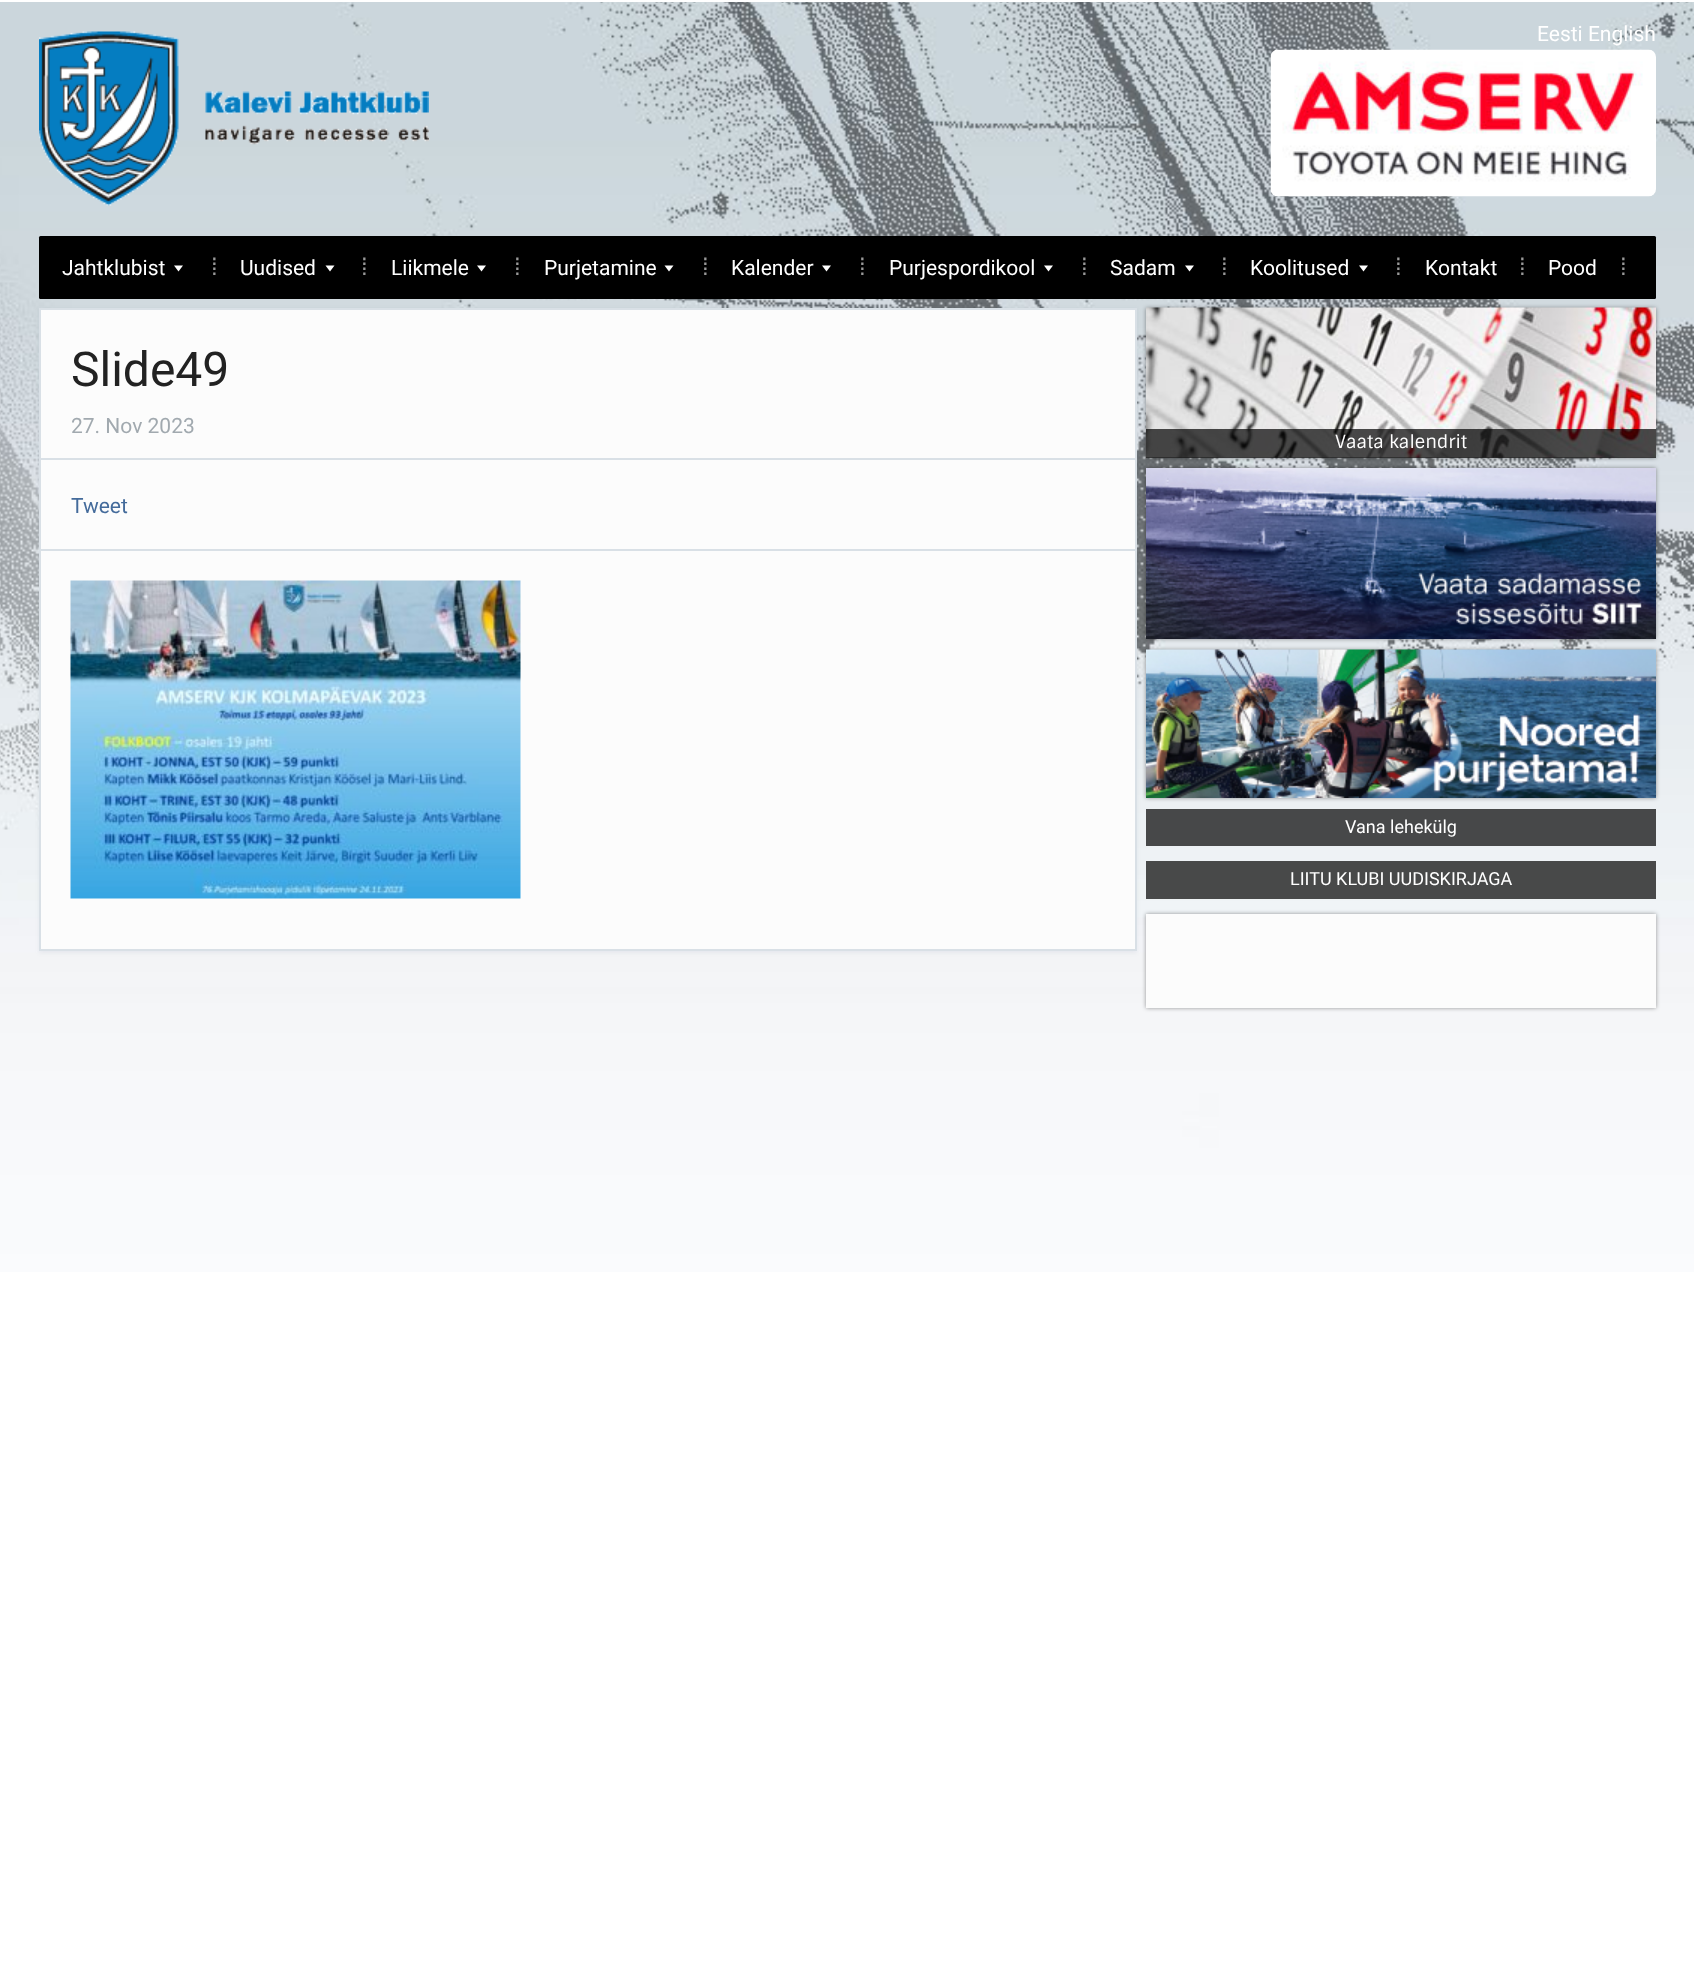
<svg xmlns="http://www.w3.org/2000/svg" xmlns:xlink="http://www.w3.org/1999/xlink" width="1694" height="1982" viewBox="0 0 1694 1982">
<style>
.cls-1{font:21px Roboto;fill:#ffffff}
.cls-2{font:24px Liberation Sans;fill:#999999}
.cls-3{font:48px Roboto;fill:#222222}
.cls-4{font:21px Roboto;fill:#a1a9af}
.cls-5{font:21px Roboto;fill:#446b9b}
.cls-6{font:18px Sintony;fill:#ffffff}
.cls-7{font:18px Roboto;fill:#ffffff}
</style>
<rect width="100%" height="100%" fill="#ffffff"/>
<image xlink:href="image0.png" x="0" y="2" width="1694" height="1270"/>
<image xlink:href="image1.png" x="39" y="31" width="390" height="175"/>
<image xlink:href="image2.png" x="1270" y="49" width="386" height="148"/>
<rect fill="#000000" x="39" y="236" width="1617" height="63" rx="1.5"/>
<path fill="#ffffff" d="M174 265.5H183L178.5 271.5Z"/>
<path fill="#ffffff" d="M325.5 265.5H334.5L330 271.5Z"/>
<path fill="#ffffff" d="M477 265.5H486L481.5 271.5Z"/>
<path fill="#ffffff" d="M664.5 265.5H673.5L669 271.5Z"/>
<path fill="#ffffff" d="M822 265.5H831L826.5 271.5Z"/>
<path fill="#ffffff" d="M1044 265.5H1053L1048.5 271.5Z"/>
<path fill="#ffffff" d="M1185 265.5H1194L1189.5 271.5Z"/>
<path fill="#ffffff" d="M1359 265.5H1368L1363.5 271.5Z"/>
<rect fill="#4a5f74" fill-opacity="0.08" filter="blur(2px)" x="39" y="309" width="1098" height="644"/>
<rect fill="#fcfcfc" stroke="#d9e0e6" stroke-width="2" x="40" y="309" width="1096" height="641"/>
<rect fill="#d9e0e6" x="41" y="458" width="1095" height="2"/>
<rect fill="#d9e0e6" x="41" y="549" width="1095" height="2"/>
<image xlink:href="image3.png" x="70" y="580" width="451" height="319"/>
<rect fill="#000000" fill-opacity="0.4" filter="blur(2px)" x="1146" y="308" width="510" height="150"/>
<image xlink:href="image4.png" x="1146" y="307" width="510" height="151"/>
<rect fill="#000000" fill-opacity="0.7" x="1146" y="429" width="510" height="29"/>
<rect fill="#000000" fill-opacity="0.4" filter="blur(2px)" x="1146" y="468" width="510" height="171"/>
<image xlink:href="image5.png" x="1146" y="468" width="510" height="171"/>
<rect fill="#000000" fill-opacity="0.4" filter="blur(2px)" x="1146" y="650" width="510" height="148"/>
<image xlink:href="image6.png" x="1146" y="649" width="510" height="149"/>
<rect fill="#474849" x="1146" y="809" width="510" height="37"/>
<rect fill="#484949" x="1146" y="861" width="510" height="38"/>
<rect fill="#000000" fill-opacity="0.4" filter="blur(2px)" x="1146" y="914" width="510" height="94"/>
<rect fill="#fcfcfc" x="1146" y="914" width="510" height="94"/>
<text class="cls-1" x="1537" y="41">Eesti English</text>
<text class="cls-1" x="62" y="275">Jahtklubist</text>
<text class="cls-2" x="211" y="275">⁞</text>
<text class="cls-1" x="240" y="275">Uudised</text>
<text class="cls-2" x="361" y="275">⁞</text>
<text class="cls-1" x="391" y="275">Liikmele</text>
<text class="cls-2" x="514" y="275">⁞</text>
<text class="cls-1" x="544" y="275">Purjetamine</text>
<text class="cls-2" x="702" y="275">⁞</text>
<text class="cls-1" x="731" y="275">Kalender</text>
<text class="cls-2" x="859" y="275">⁞</text>
<text class="cls-1" x="889" y="275">Purjespordikool</text>
<text class="cls-2" x="1081" y="275">⁞</text>
<text class="cls-1" x="1110" y="275">Sadam</text>
<text class="cls-2" x="1221" y="275">⁞</text>
<text class="cls-1" x="1250" y="275">Koolitused</text>
<text class="cls-2" x="1395" y="275">⁞</text>
<text class="cls-1" x="1425" y="275">Kontakt</text>
<text class="cls-2" x="1519" y="275">⁞</text>
<text class="cls-1" x="1548" y="275">Pood</text>
<text class="cls-2" x="1620" y="275">⁞</text>
<text class="cls-3" x="71" y="386">Slide49</text>
<text class="cls-4" x="71" y="433">27. Nov 2023</text>
<text class="cls-5" x="71" y="513">Tweet</text>
<text class="cls-6" x="1335" y="448">Vaata kalendrit</text>
<text class="cls-7" x="1345" y="833">Vana lehekülg</text>
<text class="cls-7" x="1290" y="885">LIITU KLUBI UUDISKIRJAGA</text>
</svg>
